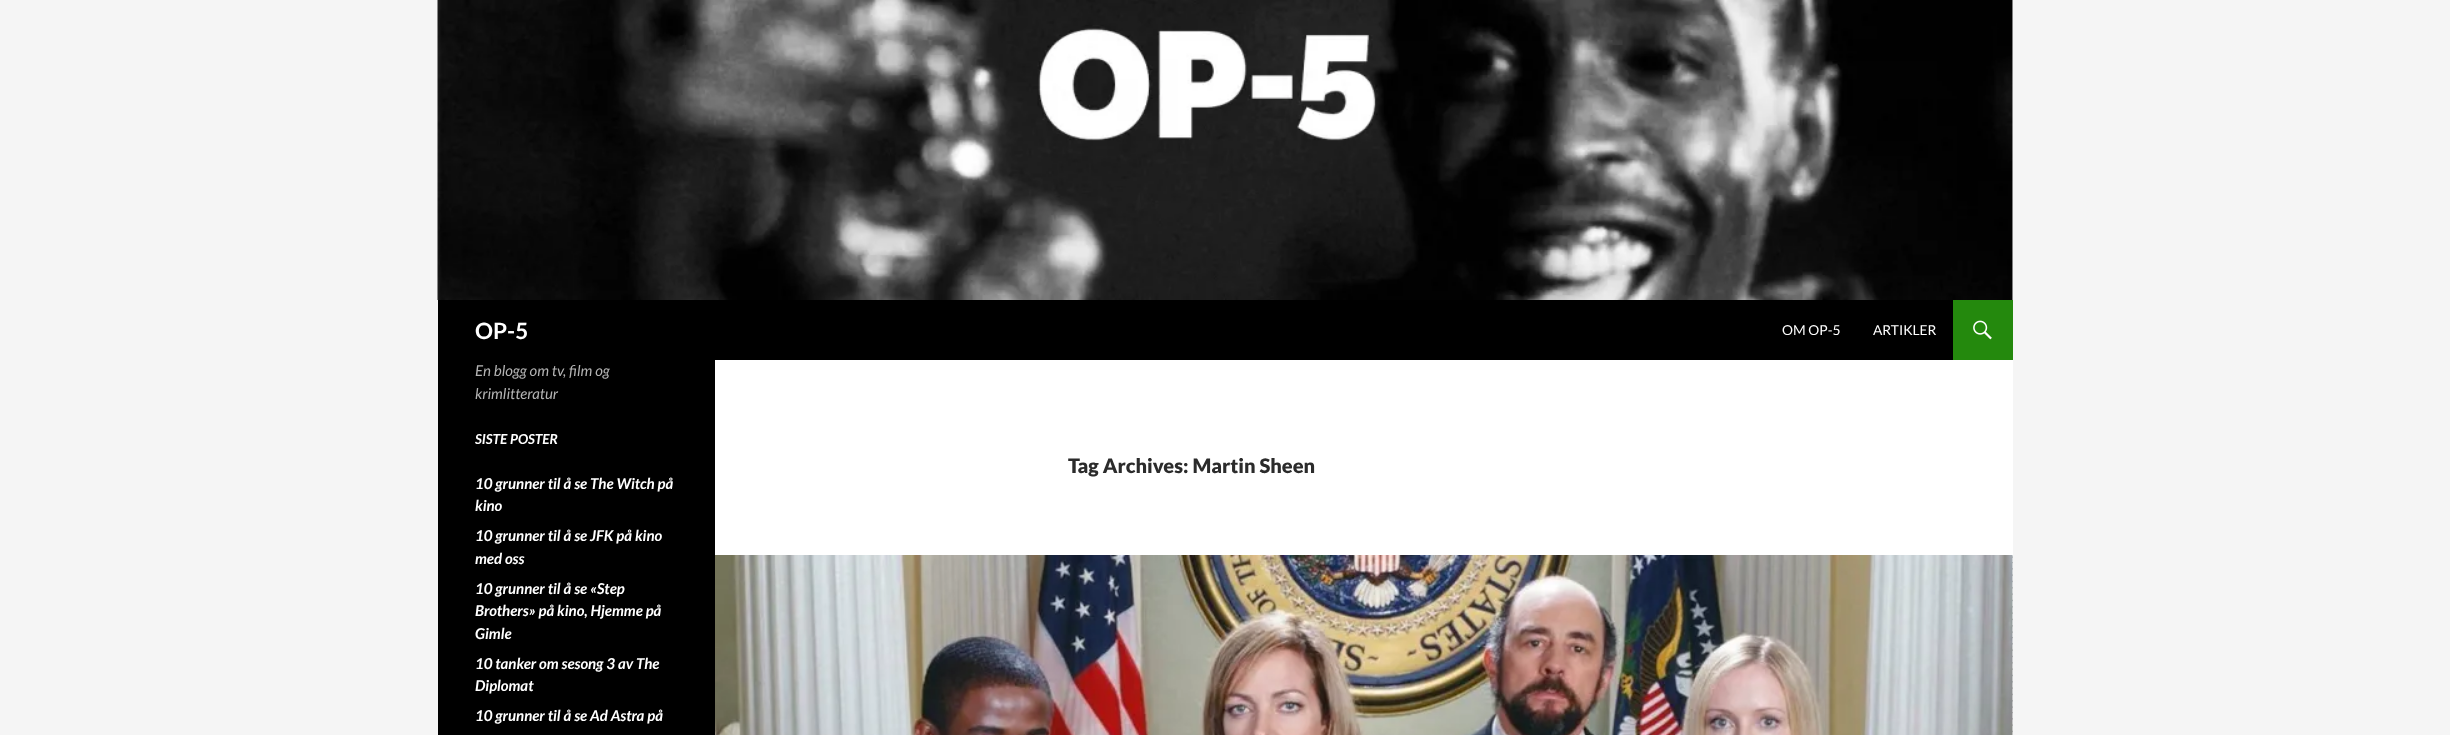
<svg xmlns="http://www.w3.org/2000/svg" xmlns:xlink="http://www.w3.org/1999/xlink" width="2450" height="735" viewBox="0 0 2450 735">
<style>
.cls-1{font:bold 22.5px Lato;fill:#ffffff}
.cls-2{font:13.75px Lato;fill:#ffffff}
.cls-3{font:italic 15px Lato;fill:#b3b3b3}
.cls-4{font:italic bold 13.75px Lato;fill:#ffffff}
.cls-5{font:italic bold 15px Lato;fill:#ffffff}
.cls-6{font:900 20px Lato;fill:#2b2b2b}
</style>
<rect width="100%" height="100%" fill="#f5f5f5"/>
<rect fill="#ffffff" x="715" y="0" width="1298" height="555"/>
<image xlink:href="image0.png" x="437" y="0" width="1576" height="300"/>
<rect fill="#000000" x="438" y="300" width="1515" height="60"/>
<rect fill="#24890d" x="1953" y="300" width="60" height="60"/>
<image xlink:href="image1.png" x="1973" y="320" width="19" height="20"/>
<rect fill="#000000" x="438" y="360" width="277" height="375"/>
<rect fill="#b2b2b2" x="2012" y="556" width="1" height="177"/>
<image xlink:href="image2.png" x="2012" y="555" width="1" height="180"/>
<image xlink:href="image3.png" x="715" y="555" width="1298" height="180"/>
<text class="cls-1" x="475" y="339">OP-5</text>
<text class="cls-2" x="1782" y="335">OM OP-5</text>
<text class="cls-2" x="1873" y="335">ARTIKLER</text>
<text class="cls-3"><tspan x="475" y="376">En blogg om tv, film og</tspan><tspan x="475" y="399">krimlitteratur</tspan></text>
<text class="cls-4" x="475" y="444">SISTE POSTER</text>
<text class="cls-5"><tspan x="475" y="489">10 grunner til å se The Witch på</tspan><tspan x="475" y="511">kino</tspan></text>
<text class="cls-5"><tspan x="475" y="541">10 grunner til å se JFK på kino</tspan><tspan x="475" y="564">med oss</tspan></text>
<text class="cls-5"><tspan x="475" y="594">10 grunner til å se «Step</tspan><tspan x="475" y="616">Brothers» på kino, Hjemme på</tspan><tspan x="475" y="639">Gimle</tspan></text>
<text class="cls-5"><tspan x="475" y="669">10 tanker om sesong 3 av The</tspan><tspan x="475" y="691">Diplomat</tspan></text>
<text class="cls-5" x="475" y="721">10 grunner til å se Ad Astra på</text>
<text class="cls-6" x="1068" y="473">Tag Archives: Martin Sheen</text>
</svg>
